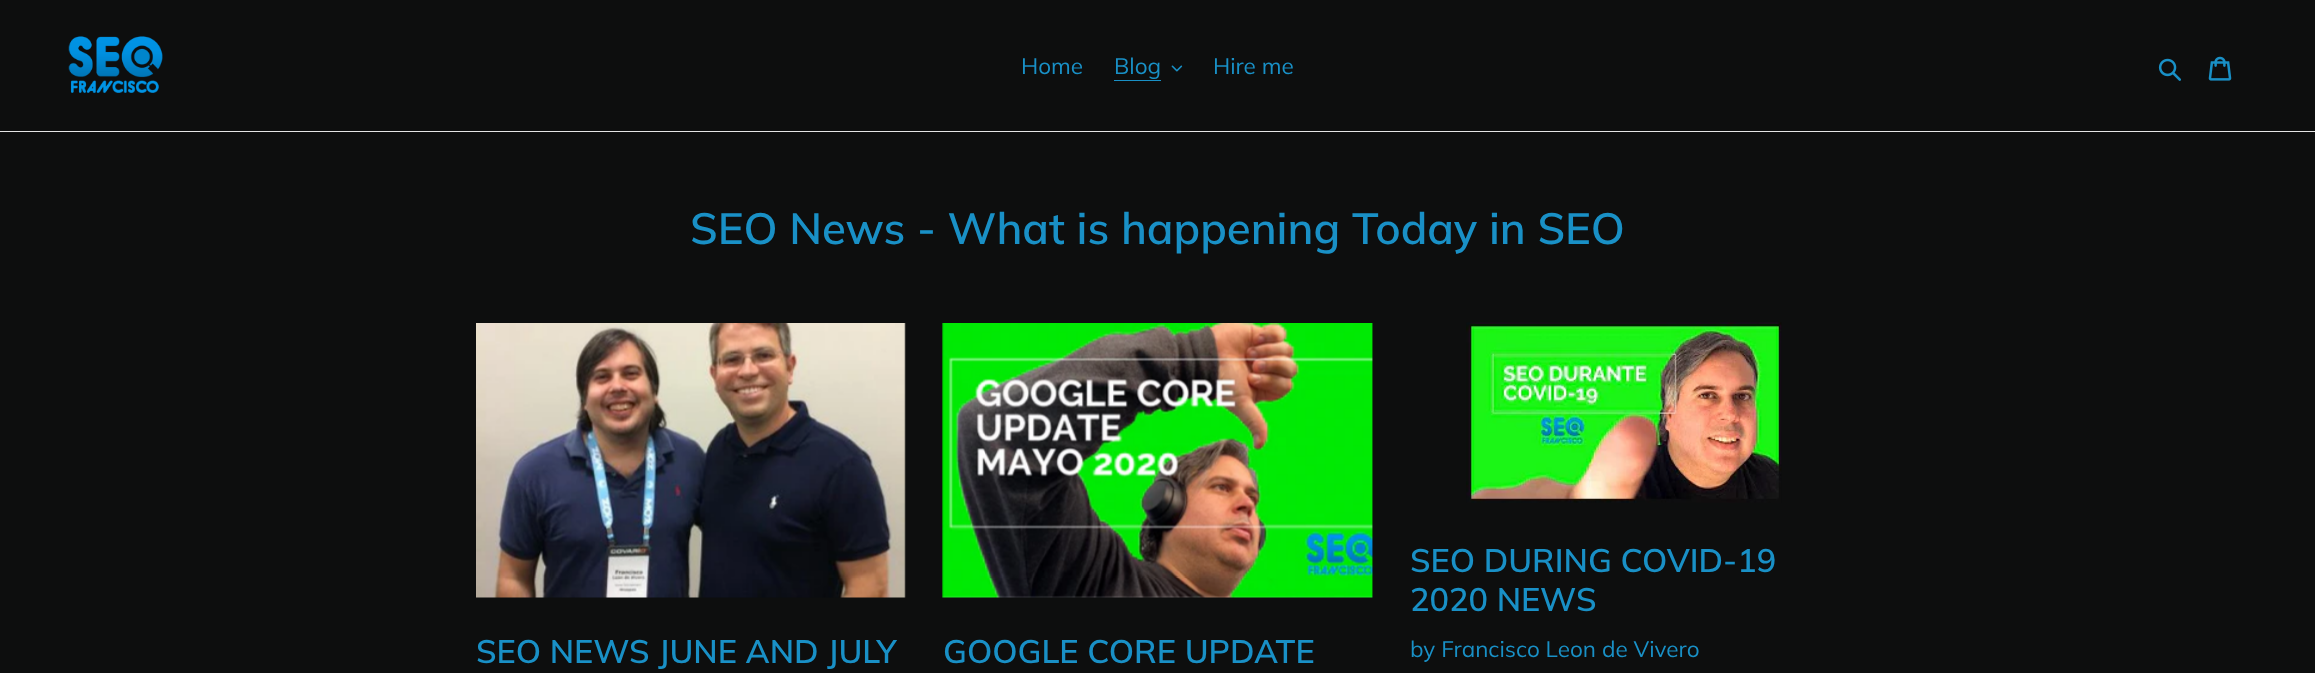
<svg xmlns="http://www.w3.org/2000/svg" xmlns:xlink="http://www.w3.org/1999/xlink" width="2315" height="673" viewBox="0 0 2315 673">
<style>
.cls-1{font:22.5px Muli;fill:#1990c6}
.cls-2{font:600 43.75px Muli;fill:#1990c6}
.cls-3{font:600 32.5px Muli;fill:#1990c6}
</style>
<rect width="100%" height="100%" fill="#0d0e0e"/>
<rect fill="#e4e4e4" x="0" y="131" width="2315" height="1"/>
<image xlink:href="image0.png" x="68" y="36" width="95" height="57"/>
<rect fill="#1990c6" x="1114" y="80" width="47" height="1"/>
<image xlink:href="image1.png" x="1171" y="65" width="12" height="7"/>
<image xlink:href="image2.png" x="2158" y="58" width="23" height="23"/>
<image xlink:href="image3.png" x="2208" y="56" width="24" height="25"/>
<image xlink:href="image4.png" x="476" y="323" width="430" height="275"/>
<image xlink:href="image5.png" x="942" y="323" width="431" height="275"/>
<image xlink:href="image6.png" x="1466" y="322" width="316" height="181"/>
<text class="cls-1" x="1021" y="74">Home</text>
<text class="cls-1" x="1114" y="74">Blog</text>
<text class="cls-1" x="1213" y="74">Hire me</text>
<text class="cls-2" x="690" y="244">SEO News - What is happening Today in SEO</text>
<text class="cls-3" x="476" y="663">SEO NEWS JUNE AND JULY</text>
<text class="cls-3" x="943" y="663">GOOGLE CORE UPDATE</text>
<text class="cls-3"><tspan x="1410" y="572">SEO DURING COVID-19</tspan><tspan x="1410" y="611">2020 NEWS</tspan></text>
<text class="cls-1" x="1410" y="657">by Francisco Leon de Vivero</text>
</svg>
